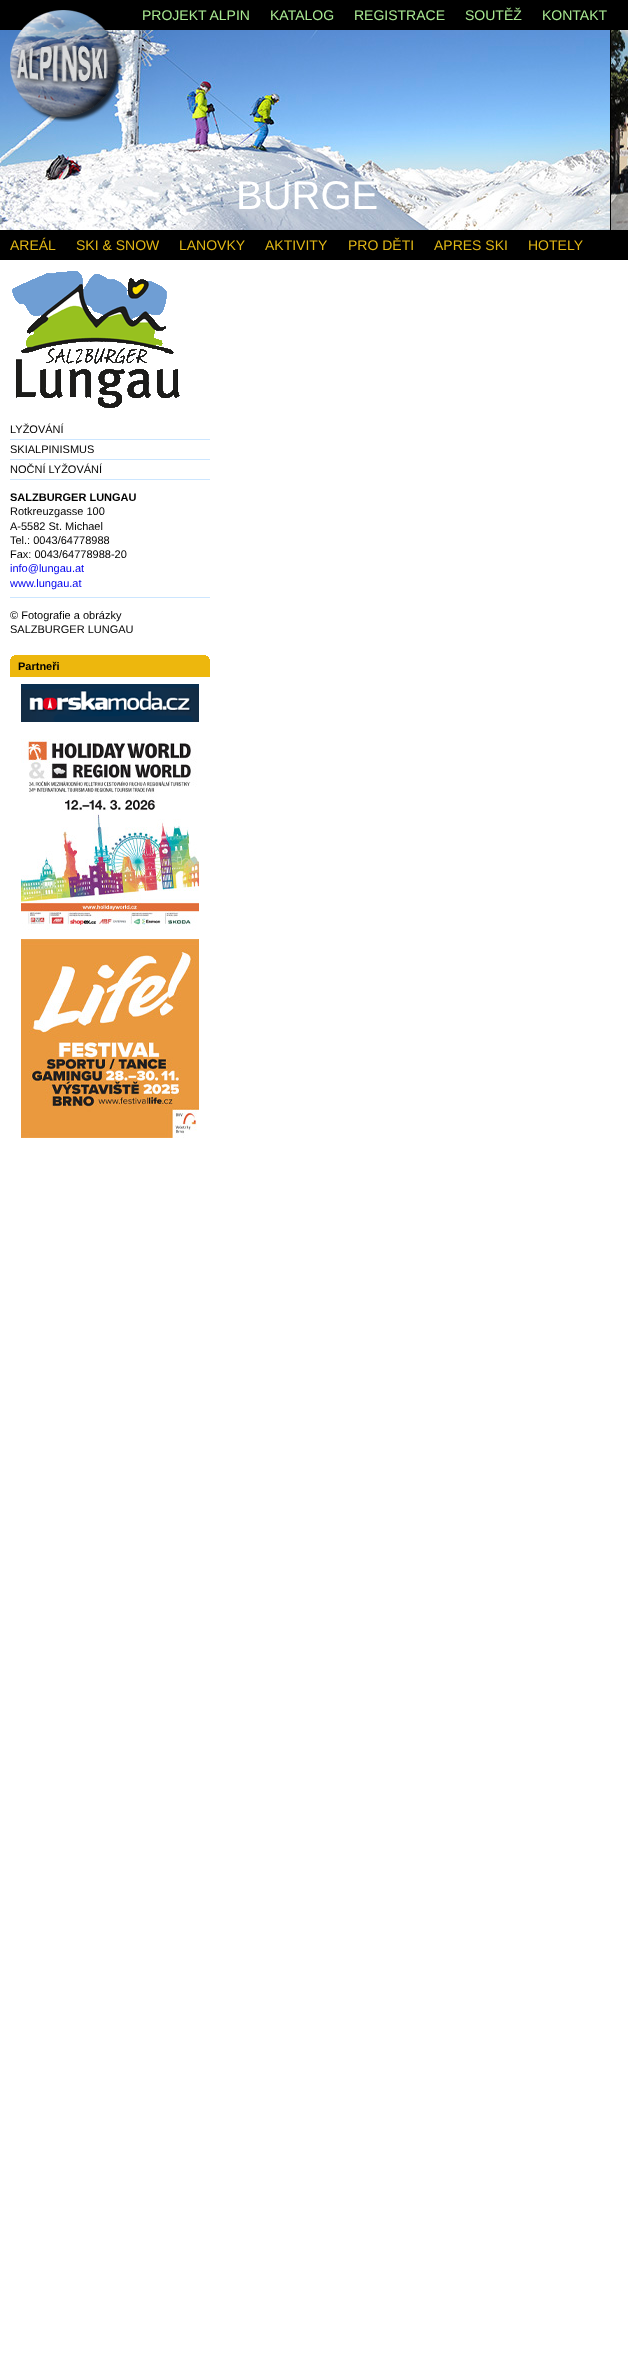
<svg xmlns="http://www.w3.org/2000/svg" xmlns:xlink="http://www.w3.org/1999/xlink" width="628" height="2371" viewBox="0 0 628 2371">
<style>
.cls-1{font:14px Liberation Sans;fill:#a9e992}
.cls-2{font:40px Liberation Sans;fill:#ffffff}
.cls-3{font:14px Liberation Sans;fill:#e1b715}
.cls-4{font:11px Liberation Sans;fill:#000000}
.cls-5{font:bold 11px Liberation Sans;fill:#000000}
.cls-6{font:11px Liberation Sans;fill:#0000ee}
</style>
<rect width="100%" height="100%" fill="#ffffff"/>
<rect fill="#000000" x="0" y="0" width="628" height="30"/>
<image xlink:href="image2.png" x="0" y="30" width="610" height="200"/>
<image xlink:href="image0.png" x="10" y="10" width="112" height="112"/>
<image xlink:href="image1.png" x="611" y="30" width="17" height="200"/>
<rect fill="#000000" x="610" y="30" width="1" height="200"/>
<rect fill="#000000" x="0" y="230" width="628" height="30"/>
<image xlink:href="image3.png" x="12" y="271" width="168" height="137"/>
<rect fill="#cce6ff" x="10" y="439" width="200" height="1"/>
<rect fill="#cce6ff" x="10" y="459" width="200" height="1"/>
<rect fill="#cce6ff" x="10" y="479" width="200" height="1"/>
<rect fill="#cce6ff" x="10" y="597" width="200" height="1"/>
<image xlink:href="image4.png" x="10" y="655" width="200" height="22"/>
<image xlink:href="image5.png" x="21" y="684" width="178" height="38"/>
<image xlink:href="image6.png" x="21" y="739" width="178" height="191"/>
<image xlink:href="image7.png" x="21" y="939" width="178" height="199"/>
<text class="cls-1" x="142" y="20">PROJEKT ALPIN</text>
<text class="cls-1" x="270" y="20">KATALOG</text>
<text class="cls-1" x="354" y="20">REGISTRACE</text>
<text class="cls-1" x="465" y="20">SOUTĚŽ</text>
<text class="cls-1" x="542" y="20">KONTAKT</text>
<text class="cls-2" x="236" y="209">BURGE</text>
<text class="cls-3" x="10" y="250">AREÁL</text>
<text class="cls-3" x="76" y="250">SKI &amp; SNOW</text>
<text class="cls-3" x="179" y="250">LANOVKY</text>
<text class="cls-3" x="265" y="250">AKTIVITY</text>
<text class="cls-3" x="348" y="250">PRO DĚTI</text>
<text class="cls-3" x="434" y="250">APRES SKI</text>
<text class="cls-3" x="528" y="250">HOTELY</text>
<text class="cls-4"><tspan x="10" y="433">LYŽOVÁNÍ</tspan><tspan x="10" y="453">SKIALPINISMUS</tspan><tspan x="10" y="473">NOČNÍ LYŽOVÁNÍ</tspan></text>
<text class="cls-5" x="10" y="501">SALZBURGER LUNGAU</text>
<text class="cls-4"><tspan x="10" y="515">Rotkreuzgasse 100</tspan><tspan x="10" y="530">A-5582 St. Michael</tspan><tspan x="10" y="544">Tel.: 0043/64778988</tspan><tspan x="10" y="558">Fax: 0043/64778988-20</tspan></text>
<text class="cls-6"><tspan x="10" y="572">info@lungau.at</tspan><tspan x="10" y="587">www.lungau.at</tspan></text>
<text class="cls-4"><tspan x="10" y="619">© Fotografie a obrázky</tspan><tspan x="10" y="633">SALZBURGER LUNGAU</tspan></text>
<text class="cls-5" x="18" y="670">Partneři</text>
</svg>
